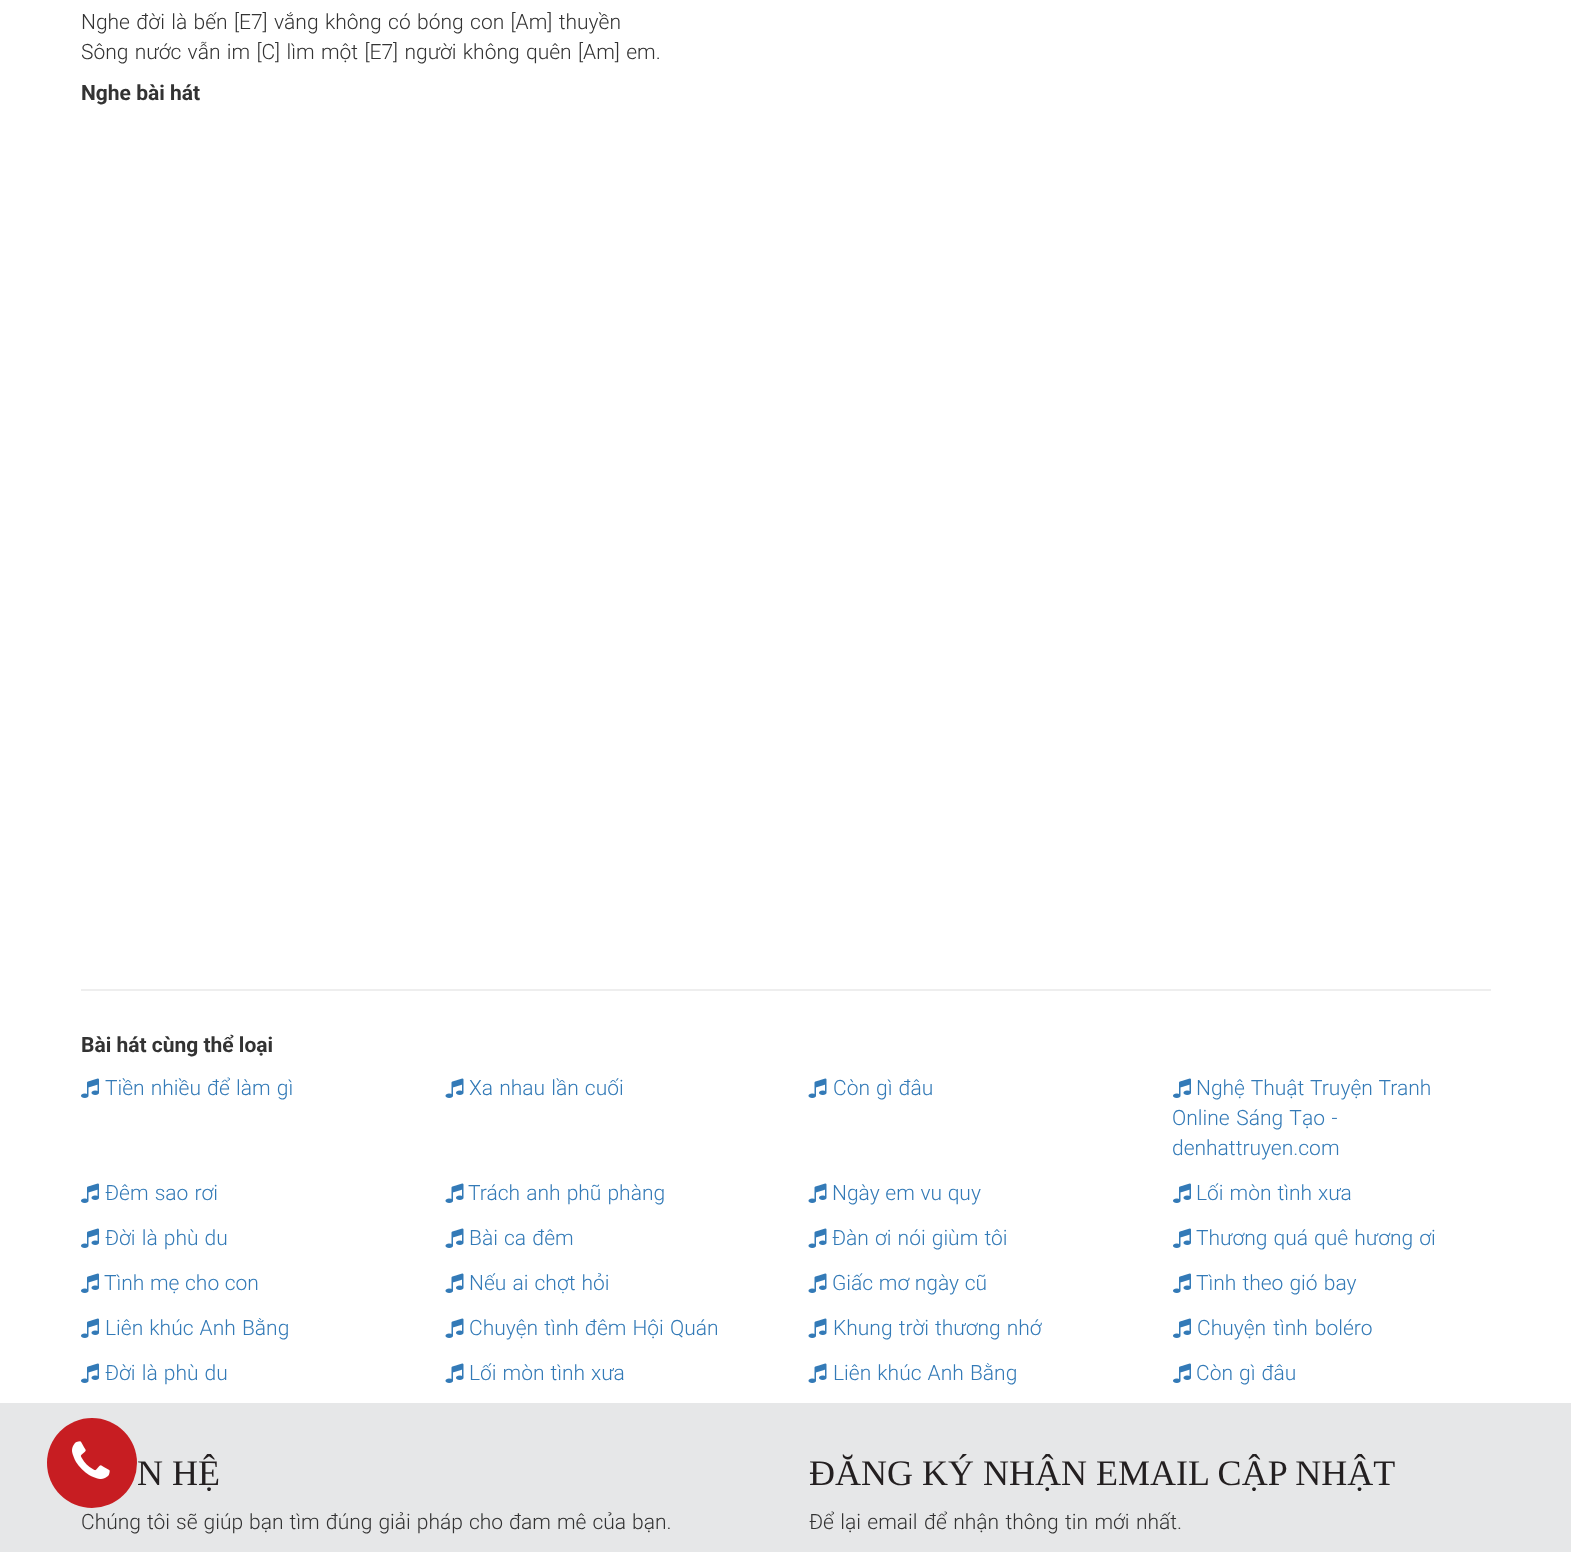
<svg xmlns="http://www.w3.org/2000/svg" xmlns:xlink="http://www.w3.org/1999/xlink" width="1571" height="1552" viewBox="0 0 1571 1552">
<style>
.cls-1{font:300 21px Roboto;fill:#333333}
.cls-2{font:bold 21px Roboto;fill:#333333}
.cls-3{font:300 21px Roboto;fill:#337ab7}
.cls-4{font:36px Liberation Serif;fill:#231f20}
</style>
<rect width="100%" height="100%" fill="#ffffff"/>
<rect fill="#eeeeee" x="81" y="989" width="1410" height="2"/>
<image xlink:href="image0.png" x="81" y="1078" width="18" height="20"/>
<image xlink:href="image1.png" x="445" y="1078" width="19" height="20"/>
<image xlink:href="image1.png" x="808" y="1078" width="19" height="20"/>
<image xlink:href="image0.png" x="1173" y="1078" width="18" height="20"/>
<image xlink:href="image0.png" x="81" y="1183" width="18" height="20"/>
<image xlink:href="image1.png" x="445" y="1183" width="19" height="20"/>
<image xlink:href="image1.png" x="808" y="1183" width="19" height="20"/>
<image xlink:href="image0.png" x="1173" y="1183" width="18" height="20"/>
<image xlink:href="image0.png" x="81" y="1228" width="18" height="20"/>
<image xlink:href="image1.png" x="445" y="1228" width="19" height="20"/>
<image xlink:href="image1.png" x="808" y="1228" width="19" height="20"/>
<image xlink:href="image0.png" x="1173" y="1228" width="18" height="20"/>
<image xlink:href="image0.png" x="81" y="1273" width="18" height="20"/>
<image xlink:href="image1.png" x="445" y="1273" width="19" height="20"/>
<image xlink:href="image1.png" x="808" y="1273" width="19" height="20"/>
<image xlink:href="image0.png" x="1173" y="1273" width="18" height="20"/>
<image xlink:href="image0.png" x="81" y="1318" width="18" height="20"/>
<image xlink:href="image1.png" x="445" y="1318" width="19" height="20"/>
<image xlink:href="image1.png" x="808" y="1318" width="19" height="20"/>
<image xlink:href="image0.png" x="1173" y="1318" width="18" height="20"/>
<image xlink:href="image0.png" x="81" y="1363" width="18" height="20"/>
<image xlink:href="image1.png" x="445" y="1363" width="19" height="20"/>
<image xlink:href="image1.png" x="808" y="1363" width="19" height="20"/>
<image xlink:href="image0.png" x="1173" y="1363" width="18" height="20"/>
<rect fill="#e6e7e8" x="0" y="1403" width="1571" height="149"/>
<circle fill="#c71d22" cx="92" cy="1463" r="45"/>
<image xlink:href="image2.png" x="72" y="1441" width="38" height="38"/>
<text class="cls-1"><tspan x="81" y="29" word-spacing="1.25">Nghe đời là bến [E7] vắng không có bóng con [Am] thuyền</tspan><tspan x="81" y="59" word-spacing="1.25">Sông nước vẫn im [C] lìm một [E7] người không quên [Am] em.</tspan></text>
<text class="cls-2" x="81" y="100">Nghe bài hát</text>
<text class="cls-2" x="81" y="1052">Bài hát cùng thể loại</text>
<text class="cls-3" x="105" y="1095" word-spacing="1">Tiền nhiều để làm gì</text>
<text class="cls-3" x="469" y="1095" word-spacing="1">Xa nhau lần cuối</text>
<text class="cls-3" x="833" y="1095" word-spacing="1">Còn gì đâu</text>
<text class="cls-3" x="1196" y="1095" word-spacing="1">Nghệ Thuật Truyện Tranh</text>
<text class="cls-3"><tspan x="1172" y="1125" word-spacing="1.5">Online Sáng Tạo -</tspan><tspan x="1172" y="1155">denhattruyen.com</tspan></text>
<text class="cls-3" x="105" y="1200" word-spacing="1">Đêm sao rơi</text>
<text class="cls-3" x="468" y="1200" word-spacing="1">Trách anh phũ phàng</text>
<text class="cls-3" x="832" y="1200" word-spacing="0.5">Ngày em vu quy</text>
<text class="cls-3" x="1196" y="1200" word-spacing="0.9">Lối mòn tình xưa</text>
<text class="cls-3" x="105" y="1245" word-spacing="1">Đời là phù du</text>
<text class="cls-3" x="469" y="1245" word-spacing="1">Bài ca đêm</text>
<text class="cls-3" x="832" y="1245" word-spacing="1">Đàn ơi nói giùm tôi</text>
<text class="cls-3" x="1196" y="1245" word-spacing="1">Thương quá quê hương ơi</text>
<text class="cls-3" x="104" y="1290" word-spacing="0.5">Tình mẹ cho con</text>
<text class="cls-3" x="469" y="1290" word-spacing="1">Nếu ai chợt hỏi</text>
<text class="cls-3" x="832" y="1290" word-spacing="0.5">Giấc mơ ngày cũ</text>
<text class="cls-3" x="1196" y="1290" word-spacing="1">Tình theo gió bay</text>
<text class="cls-3" x="105" y="1335" word-spacing="1">Liên khúc Anh Bằng</text>
<text class="cls-3" x="469" y="1335" word-spacing="1">Chuyện tình đêm Hội Quán</text>
<text class="cls-3" x="833" y="1335" word-spacing="1">Khung trời thương nhớ</text>
<text class="cls-3" x="1197" y="1335" word-spacing="2">Chuyện tình boléro</text>
<text class="cls-3" x="105" y="1380" word-spacing="1">Đời là phù du</text>
<text class="cls-3" x="469" y="1380" word-spacing="0.9">Lối mòn tình xưa</text>
<text class="cls-3" x="833" y="1380" word-spacing="1">Liên khúc Anh Bằng</text>
<text class="cls-3" x="1196" y="1380" word-spacing="1">Còn gì đâu</text>
<text class="cls-4" x="137" y="1485">N HỆ</text>
<text class="cls-1" x="81" y="1529" word-spacing="0.9">Chúng tôi sẽ giúp bạn tìm đúng giải pháp cho đam mê của bạn.</text>
<text class="cls-4" x="809" y="1485">ĐĂNG KÝ NHẬN EMAIL CẬP NHẬT</text>
<text class="cls-1" x="809" y="1529" word-spacing="1.25">Để lại email để nhận thông tin mới nhất.</text>
</svg>
